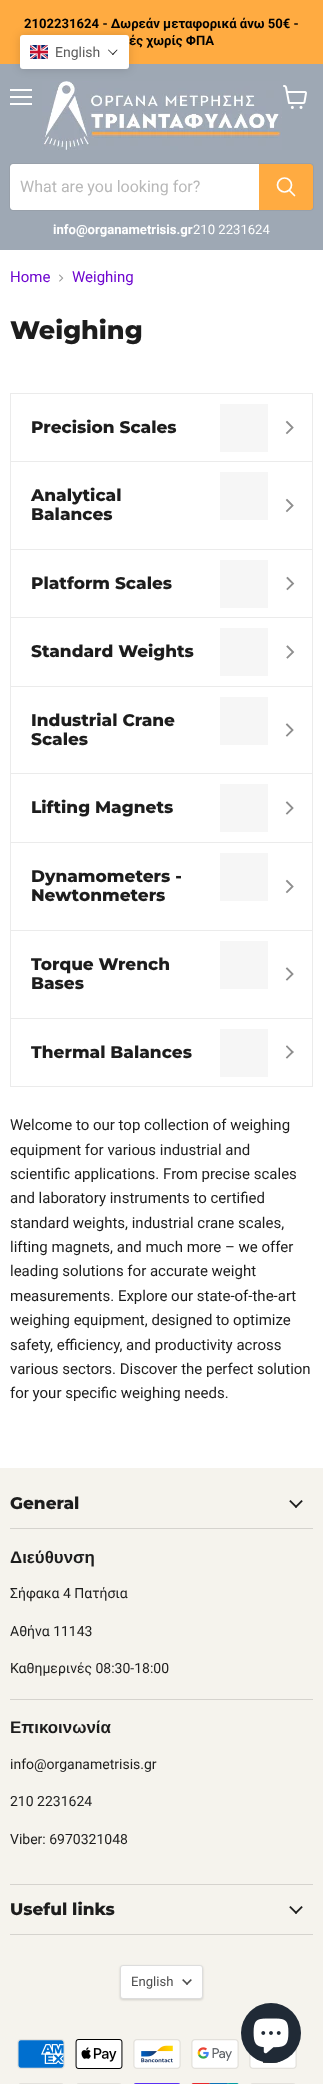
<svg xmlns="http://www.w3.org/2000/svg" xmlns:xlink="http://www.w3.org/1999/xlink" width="323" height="2084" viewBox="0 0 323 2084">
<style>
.cls-1{font:bold 13.1px Roboto;fill:#000000}
.cls-2{font:14px Roboto;fill:#5c5c5c}
.cls-3{font:16px Roboto;fill:#b8b8b8}
.cls-4{font:bold 13.1px Roboto;fill:#ffffff}
.cls-5{font:13.1px Roboto;fill:#ffffff}
.cls-6{font:15px Roboto;fill:#6e05cf}
.cls-7{font:800 25.5px Montserrat;fill:#1d1d1d}
.cls-8{font:800 16.9px Montserrat;fill:#1d1d1d}
.cls-9{font:15px Roboto;fill:#1d1d1d}
.cls-10{font:bold 16.9px Liberation Sans;fill:#1d1d1d}
.cls-11{font:14px Roboto;fill:#1d1d1d}
.cls-12{font:13.1px Roboto;fill:#4d4d4d}
</style>
<defs>
<clipPath id="clip1"><path d="M286 1059V1045H294V1059Z"/></clipPath>
</defs>
<rect width="100%" height="100%" fill="#ffffff"/>
<rect fill="#ffab41" x="0" y="0" width="323" height="64"/>
<rect fill="#9ea8b4" x="0" y="64" width="323" height="186"/>
<image xlink:href="image2.png" x="42" y="81" width="240" height="69"/>
<rect fill="#000000" fill-opacity="0.15" filter="blur(5px)" x="20" y="35" width="109" height="34" rx="3"/>
<rect fill="#ffffff" x="20" y="35" width="109" height="34" rx="3"/>
<image xlink:href="image0.png" x="30" y="45" width="18" height="14"/>
<path fill="#1a1a1a" d="M117 49.5L117.5 50L113 55L112 54.5Z"/>
<path fill="#1a1a1a" d="M108.5 49.5L113.5 54.5L113 55L108 50Z"/>
<rect fill="#ffffff" x="10" y="89" width="22" height="2"/>
<rect fill="#ffffff" x="10" y="96" width="22" height="2"/>
<rect fill="#ffffff" x="10" y="103" width="22" height="2"/>
<image xlink:href="image1.png" x="283" y="85" width="24" height="24"/>
<rect fill="none" stroke="#98a0aa" x="9.5" y="163.5" width="304" height="47" rx="3.5"/>
<path fill="#ffffff" d="M13 164H259V210H13C11.5 210 10 208.5 10 207V167C10 165.5 11.5 164 13 164Z"/>
<path fill="#ffab41" stroke="#ffab41" d="M259.5 164.5H310C311.5 164.5 312.5 165.5 312.5 167V207C312.5 208.5 311.5 209.5 310 209.5H259.5Z"/>
<path fill="none" stroke="#ffffff" stroke-width="1.7" stroke-linecap="round" d="M294.5 195.5L289.5 190.5"/>
<circle fill="none" stroke="#ffffff" stroke-width="1.7" cx="284.5" cy="185" r="7"/>
<image xlink:href="image3.png" x="59" y="274" width="5" height="8"/>
<rect fill="none" stroke="#ebebeb" x="10.5" y="393.5" width="302" height="693"/>
<rect fill="#ebebeb" x="11" y="461" width="301" height="1"/>
<path fill="none" stroke="#8e8e8e" stroke-width="1.8" stroke-linecap="square" d="M292.5 427.5L287 422M292.5 427.5L287 433"/>
<rect fill="#f6f6f6" x="220" y="404" width="48" height="48"/>
<rect fill="#ebebeb" x="11" y="549" width="301" height="1"/>
<path fill="none" stroke="#8e8e8e" stroke-width="1.8" stroke-linecap="square" d="M292.5 505.5L287 500M292.5 505.5L287 511"/>
<rect fill="#f6f6f6" x="220" y="472" width="48" height="48"/>
<rect fill="#ebebeb" x="11" y="617" width="301" height="1"/>
<path fill="none" stroke="#8e8e8e" stroke-width="1.8" stroke-linecap="square" d="M293 583.5L287.5 578M293 583.5L287.5 589"/>
<rect fill="#f6f6f6" x="220" y="560" width="48" height="48"/>
<rect fill="#ebebeb" x="11" y="686" width="301" height="1"/>
<path fill="none" stroke="#8e8e8e" stroke-width="1.8" stroke-linecap="square" d="M293 652L287.5 646.5M293 652L287.5 657.5"/>
<rect fill="#f6f6f6" x="220" y="628" width="48" height="48"/>
<rect fill="#ebebeb" x="11" y="773" width="301" height="1"/>
<path fill="none" stroke="#8e8e8e" stroke-width="1.8" stroke-linecap="square" d="M292.5 730L287 724.5M292.5 730L287 735.5"/>
<rect fill="#f6f6f6" x="220" y="697" width="48" height="48"/>
<rect fill="#ebebeb" x="11" y="842" width="301" height="1"/>
<path fill="none" stroke="#8e8e8e" stroke-width="1.8" stroke-linecap="square" d="M292.5 808L287 802.5M292.5 808L287 813.5"/>
<rect fill="#f6f6f6" x="220" y="784" width="48" height="48"/>
<rect fill="#ebebeb" x="11" y="930" width="301" height="1"/>
<path fill="none" stroke="#8e8e8e" stroke-width="1.8" stroke-linecap="square" d="M292.5 886.5L287 881M292.5 886.5L287 892"/>
<rect fill="#f6f6f6" x="220" y="853" width="48" height="48"/>
<rect fill="#ebebeb" x="11" y="1018" width="301" height="1"/>
<path fill="none" stroke="#8e8e8e" stroke-width="1.8" stroke-linecap="square" d="M292.5 974L287 968.5M292.5 974L287 979.5"/>
<rect fill="#f6f6f6" x="220" y="941" width="48" height="48"/>
<g clip-path="url(#clip1)">
<path fill="none" stroke="#8e8e8e" stroke-width="1.8" stroke-linecap="square" d="M292.5 1052L287 1046.5"/>
</g>
<path fill="none" stroke="#8e8e8e" stroke-width="1.8" stroke-linecap="square" d="M292.5 1052L287 1057.5"/>
<rect fill="#f6f6f6" x="220" y="1029" width="48" height="48"/>
<rect fill="#f5f3ed" x="0" y="1468" width="323" height="616"/>
<rect fill="#d5d3ce" x="10" y="1528" width="303" height="1"/>
<image xlink:href="image4.png" x="289" y="1500" width="14" height="8"/>
<rect fill="#d5d3ce" x="10" y="1699" width="303" height="1"/>
<rect fill="#d5d3ce" x="10" y="1884" width="303" height="1"/>
<rect fill="#d5d3ce" x="10" y="1934" width="303" height="1"/>
<image xlink:href="image4.png" x="289" y="1906" width="14" height="8"/>
<rect fill="#000000" fill-opacity="0.15" filter="blur(1px)" x="120" y="1966" width="83" height="34" rx="3"/>
<rect fill="#ffffff" stroke="#dddddd" x="120.5" y="1965.5" width="82" height="33" rx="2.5"/>
<image xlink:href="image5.png" x="182" y="1979" width="10" height="6"/>
<image xlink:href="image6.png" x="17" y="2039" width="48" height="30"/>
<image xlink:href="image7.png" x="75" y="2039" width="48" height="30"/>
<image xlink:href="image8.png" x="133" y="2039" width="48" height="30"/>
<image xlink:href="image9.png" x="191" y="2039" width="48" height="30"/>
<image xlink:href="image10.png" x="249" y="2048" width="48" height="21"/>
<image xlink:href="image11.png" x="19" y="2083" width="44" height="1"/>
<image xlink:href="image11.png" x="77" y="2083" width="44" height="1"/>
<image xlink:href="image12.png" x="134" y="2083" width="46" height="1"/>
<image xlink:href="image13.png" x="191" y="2083" width="48" height="1"/>
<image xlink:href="image11.png" x="251" y="2083" width="44" height="1"/>
<circle fill="#202a36" cx="271" cy="2033" r="30"/>
<image xlink:href="image14.png" x="253" y="2018" width="36" height="36"/>
<text class="cls-1" x="24" y="28">2102231624 - Δωρεάν μεταφορικά άνω 50€ -</text>
<text class="cls-1" x="129" y="45">ές χωρίς ΦΠΑ</text>
<text class="cls-2" x="55" y="57">English</text>
<text class="cls-3" x="20" y="192">What are you looking for?</text>
<text class="cls-4" x="53" y="234">info@organametrisis.gr</text>
<text class="cls-5" x="193" y="234">210 2231624</text>
<text class="cls-6" x="10" y="282">Home</text>
<text class="cls-6" x="72" y="282">Weighing</text>
<text class="cls-7" x="10" y="339">Weighing</text>
<text class="cls-8" x="31" y="433">Precision Scales</text>
<text class="cls-8"><tspan x="31" y="501">Analytical</tspan><tspan x="31" y="520">Balances</tspan></text>
<text class="cls-8" x="31" y="589">Platform Scales</text>
<text class="cls-8" x="31" y="657">Standard Weights</text>
<text class="cls-8"><tspan x="31" y="726">Industrial Crane</tspan><tspan x="31" y="745">Scales</tspan></text>
<text class="cls-8" x="31" y="813">Lifting Magnets</text>
<text class="cls-8"><tspan x="31" y="882">Dynamometers -</tspan><tspan x="31" y="901">Newtonmeters</tspan></text>
<text class="cls-8"><tspan x="31" y="970">Torque Wrench</tspan><tspan x="31" y="989">Bases</tspan></text>
<text class="cls-8" x="31" y="1058">Thermal Balances</text>
<text class="cls-9"><tspan x="10" y="1130">Welcome to our top collection of weighing</tspan><tspan x="10" y="1155">equipment for various industrial and</tspan><tspan x="10" y="1179">scientific applications. From precise scales</tspan><tspan x="10" y="1203">and laboratory instruments to certified</tspan><tspan x="10" y="1228">standard weights, industrial crane scales,</tspan><tspan x="10" y="1252">lifting magnets, and much more – we offer</tspan><tspan x="10" y="1276">leading solutions for accurate weight</tspan><tspan x="10" y="1301">measurements. Explore our state-of-the-art</tspan><tspan x="10" y="1325">weighing equipment, designed to optimize</tspan><tspan x="10" y="1350">safety, efficiency, and productivity across</tspan><tspan x="10" y="1374">various sectors. Discover the perfect solution</tspan><tspan x="10" y="1398">for your specific weighing needs.</tspan></text>
<text class="cls-8" x="10" y="1509">General</text>
<text class="cls-10" x="10" y="1563">Διεύθυνση</text>
<text class="cls-11" x="10" y="1598">Σήφακα 4 Πατήσια</text>
<text class="cls-11" x="10" y="1636">Αθήνα 11143</text>
<text class="cls-11" x="10" y="1673">Καθημερινές 08:30-18:00</text>
<text class="cls-10" x="10" y="1733">Επικοινωνία</text>
<text class="cls-11" x="10" y="1769">info@organametrisis.gr</text>
<text class="cls-11" x="10" y="1806">210 2231624</text>
<text class="cls-11" x="10" y="1844">Viber: 6970321048</text>
<text class="cls-8" x="10" y="1915">Useful links</text>
<text class="cls-12" x="131" y="1986">English</text>
</svg>
